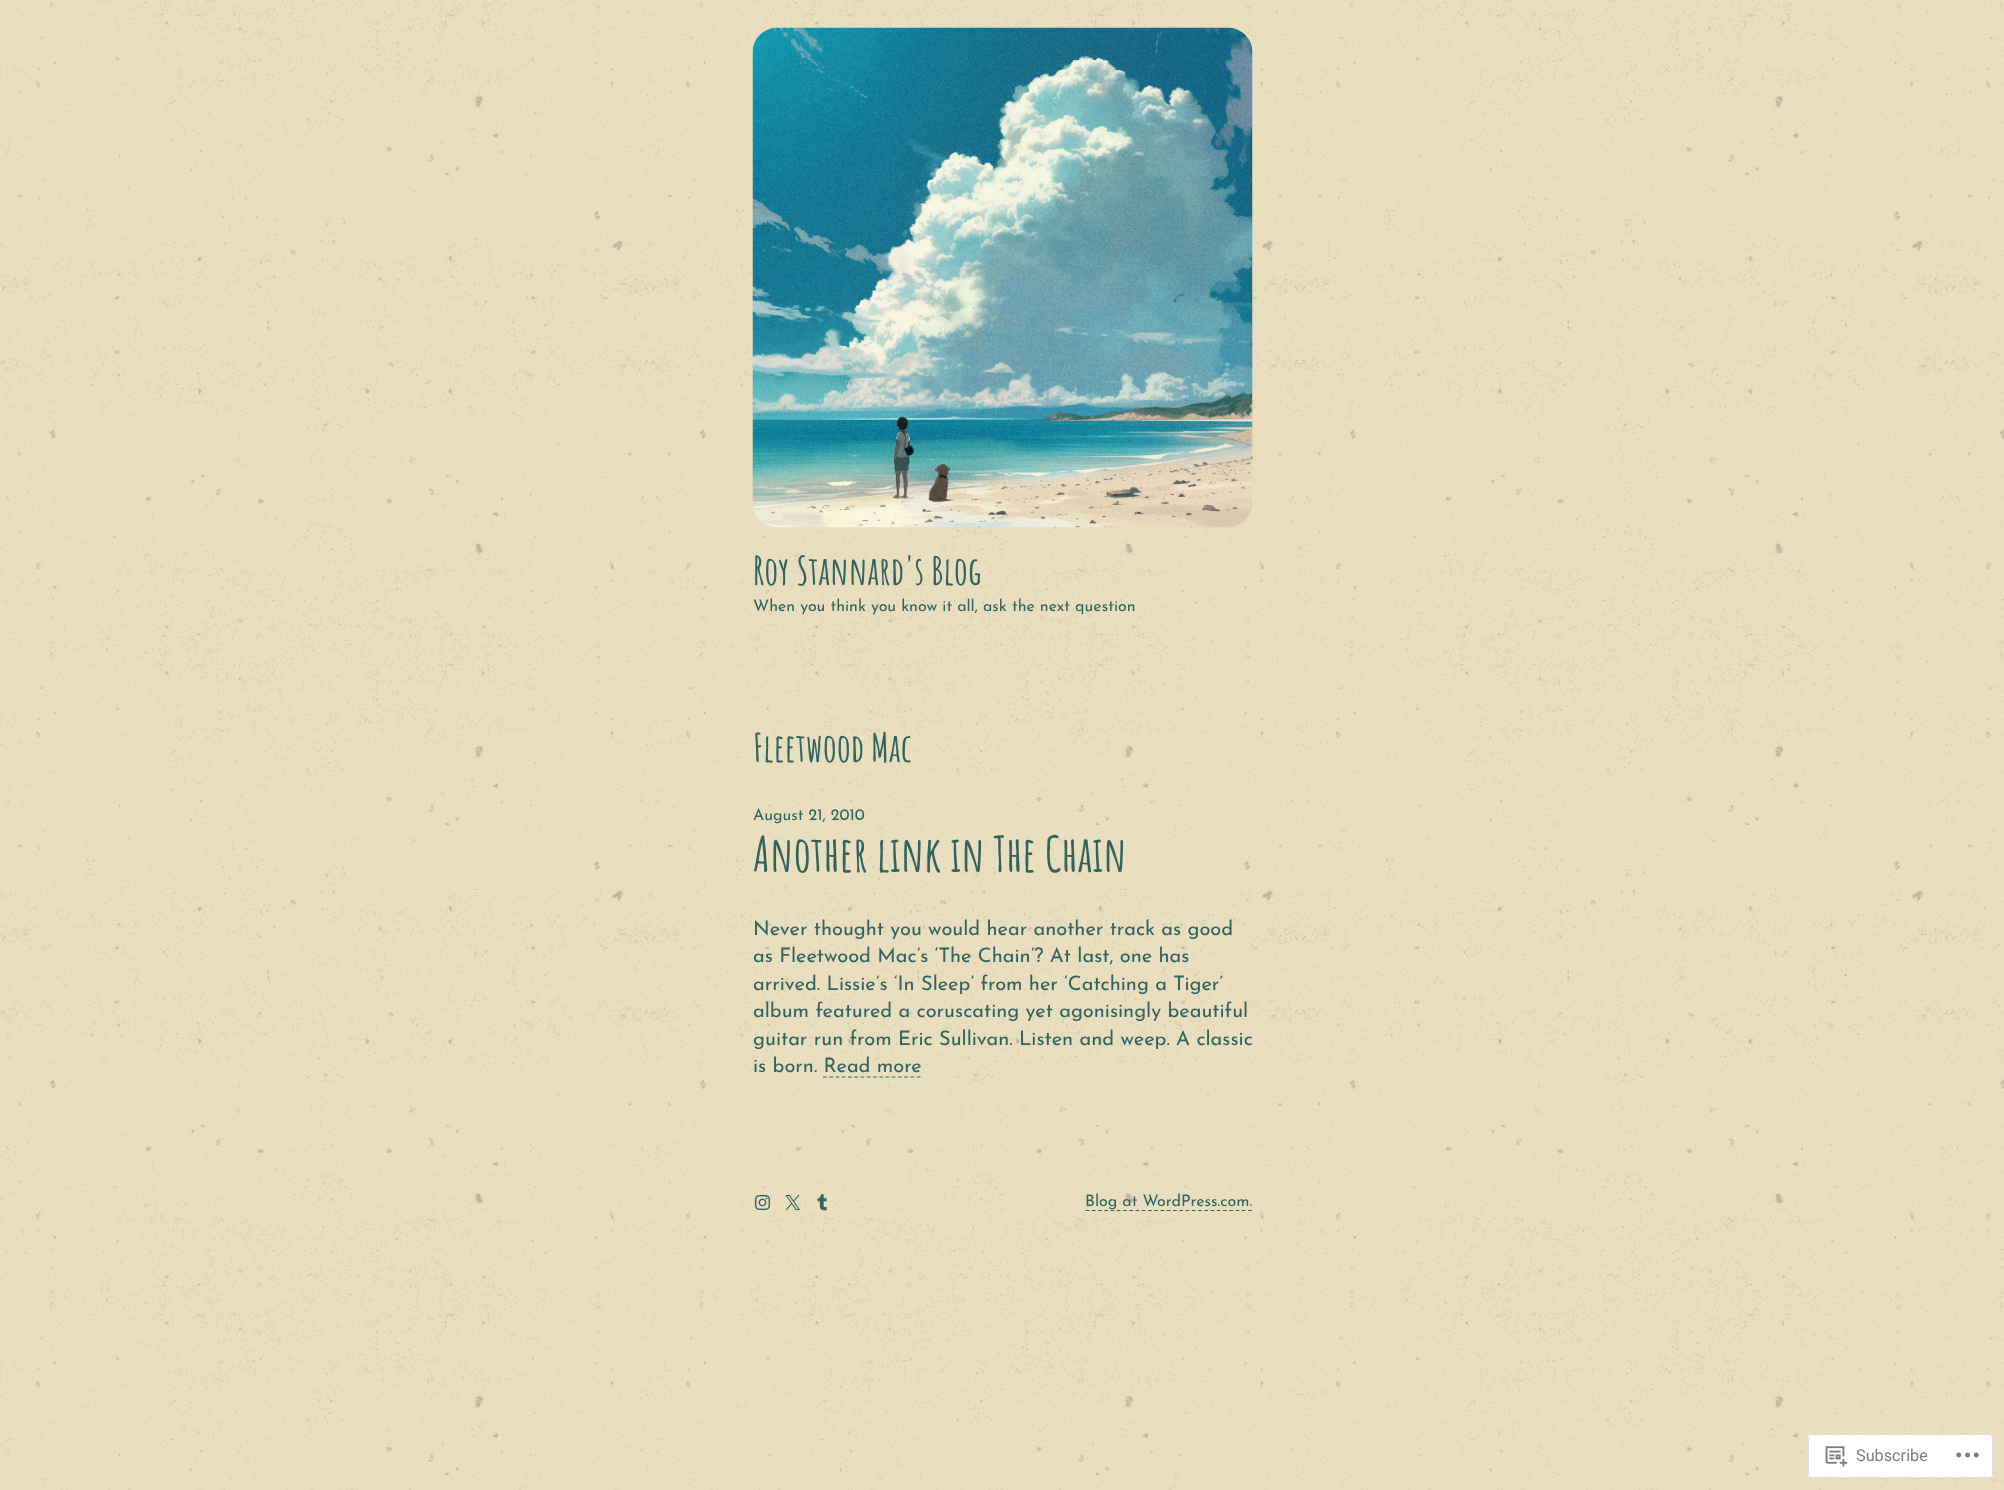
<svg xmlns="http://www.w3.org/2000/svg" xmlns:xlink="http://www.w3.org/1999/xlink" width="2004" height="1490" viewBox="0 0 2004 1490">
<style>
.cls-1{font:bold 39px Amatic SC;fill:#316460}
.cls-2{font:16px Josefin Sans;fill:#316460}
.cls-3{font:bold 48.75px Amatic SC;fill:#316460}
.cls-4{font:20px Josefin Sans;fill:#316460}
.cls-5{font:16.25px Roboto;fill:#7b7f84}
</style>
<rect width="100%" height="100%" fill="#e9debe"/>
<image xlink:href="image0.png" x="0" y="0" width="2004" height="1490"/>
<image xlink:href="image1.png" x="752" y="27" width="501" height="501"/>
<path fill="none" stroke="#316460" stroke-width="1.2" stroke-dasharray="3.75 2.5" d="M823 1077H921"/>
<image xlink:href="image2.png" x="755" y="1195" width="15" height="15"/>
<image xlink:href="image3.png" x="785" y="1195" width="15" height="15"/>
<image xlink:href="image4.png" x="817" y="1194" width="10" height="17"/>
<path fill="none" stroke="#316460" stroke-width="1.2" stroke-dasharray="3.75 2.5" d="M1085.5 1210.5H1252.5"/>
<rect fill="#ffffff" fill-opacity="0.98" x="1808" y="1434" width="185" height="44" rx="4"/>
<rect fill="none" stroke="#dcdcde" stroke-opacity="0.98" x="1808.5" y="1434.5" width="184" height="43" rx="3.5"/>
<image xlink:href="image5.png" x="1825" y="1446" width="23" height="21"/>
<image xlink:href="image6.png" x="1956" y="1452" width="23" height="6"/>
<text class="cls-1" x="753" y="585">Roy Stannard's Blog</text>
<text class="cls-2" x="753" y="611">When you think you know it all, ask the next question</text>
<text class="cls-1" x="753" y="762">Fleetwood Mac</text>
<text class="cls-2" x="753" y="820">August 21, 2010</text>
<text class="cls-3" x="753" y="872">Another link in The Chain</text>
<text class="cls-4"><tspan x="753" y="935">Never thought you would hear another track as good</tspan><tspan x="753" y="962">as Fleetwood Mac’s ‘The Chain’? At last, one has</tspan><tspan x="753" y="990">arrived. Lissie’s ‘In Sleep’ from her ‘Catching a Tiger’</tspan><tspan x="753" y="1017">album featured a coruscating yet agonisingly beautiful</tspan><tspan x="753" y="1045">guitar run from Eric Sullivan. Listen and weep. A classic</tspan><tspan x="753" y="1072">is born. Read more</tspan></text>
<text class="cls-2" x="1085" y="1206">Blog at WordPress.com.</text>
<text class="cls-5" x="1856" y="1461">Subscribe</text>
</svg>
